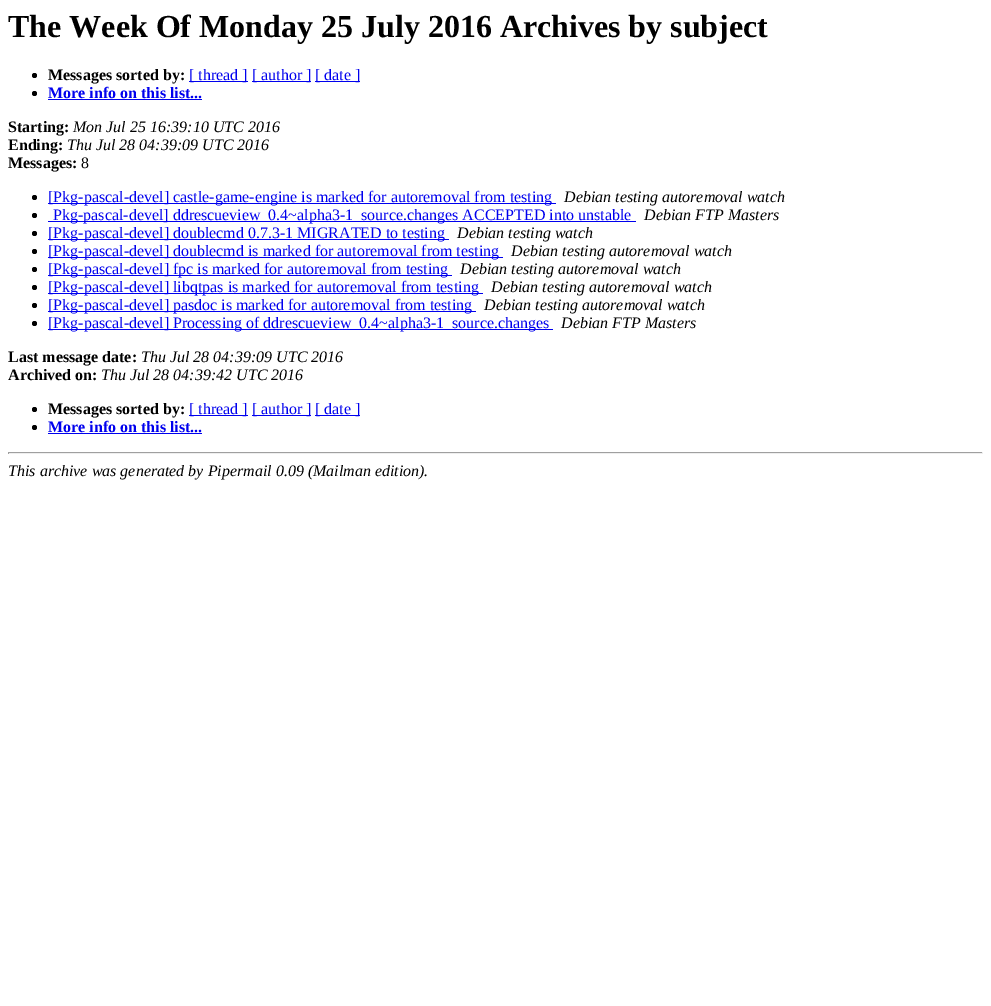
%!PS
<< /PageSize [991 1006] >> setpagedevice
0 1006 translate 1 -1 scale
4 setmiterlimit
1 setgray
0 0 991 1006 rectfill
/LiberationSerif-Bold [32 0 0 -32 0 0] selectfont
0 setgray
8 37 moveto (The Week Of Monday 25 July 2016 Archives by subject) show
newpath 34.5 75.5 2.5 0 360 arc closepath fill
/LiberationSerif-Bold [16 0 0 -16 0 0] selectfont
48 80 moveto (Messages sorted by:) show
0 0 0.933 setrgbcolor
189 81 59 1 rectfill
/LiberationSerif-Regular [16 0 0 -16 0 0] selectfont
189 80 moveto ([ thread ]) show
252 81 59 1 rectfill
252 80 moveto ([ author ]) show
315 81 45 1 rectfill
315 80 moveto ([ date ]) show
0 setgray
newpath 34.5 93.5 2.5 0 360 arc closepath fill
/LiberationSerif-Bold [16 0 0 -16 0 0] selectfont
0 0 0.933 setrgbcolor
48 98 moveto (More info on this list...) show
48 99 154 1 rectfill
0 setgray
8 132 moveto (Starting:) show
/LiberationSerif-Italic [16 0 0 -16 0 0] selectfont
73 132 moveto (Mon Jul 25 16:39:10 UTC 2016) show
/LiberationSerif-Bold [16 0 0 -16 0 0] selectfont
8 150 moveto (Ending:) show
/LiberationSerif-Italic [16 0 0 -16 0 0] selectfont
67 150 moveto (Thu Jul 28 04:39:09 UTC 2016) show
/LiberationSerif-Bold [16 0 0 -16 0 0] selectfont
8 168 moveto (Messages:) show
/LiberationSerif-Regular [16 0 0 -16 0 0] selectfont
81 168 moveto (8) show
newpath 34.5 197.5 2.5 0 360 arc closepath fill
0 0 0.933 setrgbcolor
48 203 508 1 rectfill
48 202 moveto ([Pkg-pascal-devel] castle-game-engine is marked for autoremoval from testing) show
/LiberationSerif-Italic [16 0 0 -16 0 0] selectfont
0 setgray
564 202 moveto (Debian testing autoremoval watch) show
newpath 34.5 215.5 2.5 0 360 arc closepath fill
0 0 0.933 setrgbcolor
48 221 588 1 rectfill
/LiberationSerif-Regular [16 0 0 -16 0 0] selectfont
53 220 moveto (Pkg-pascal-devel] ddrescueview_0.4~alpha3-1_source.changes ACCEPTED into unstable) show
/LiberationSerif-Italic [16 0 0 -16 0 0] selectfont
0 setgray
644 220 moveto (Debian FTP Masters) show
newpath 34.5 233.5 2.5 0 360 arc closepath fill
0 0 0.933 setrgbcolor
48 239 401 1 rectfill
/LiberationSerif-Regular [16 0 0 -16 0 0] selectfont
48 238 moveto ([Pkg-pascal-devel] doublecmd 0.7.3-1 MIGRATED to testing) show
/LiberationSerif-Italic [16 0 0 -16 0 0] selectfont
0 setgray
457 238 moveto (Debian testing watch) show
newpath 34.5 251.5 2.5 0 360 arc closepath fill
0 0 0.933 setrgbcolor
48 257 455 1 rectfill
/LiberationSerif-Regular [16 0 0 -16 0 0] selectfont
48 256 moveto ([Pkg-pascal-devel] doublecmd is marked for autoremoval from testing) show
/LiberationSerif-Italic [16 0 0 -16 0 0] selectfont
0 setgray
511 256 moveto (Debian testing autoremoval watch) show
newpath 34.5 269.5 2.5 0 360 arc closepath fill
0 0 0.933 setrgbcolor
48 275 404 1 rectfill
/LiberationSerif-Regular [16 0 0 -16 0 0] selectfont
48 274 moveto ([Pkg-pascal-devel] fpc is marked for autoremoval from testing) show
/LiberationSerif-Italic [16 0 0 -16 0 0] selectfont
0 setgray
460 274 moveto (Debian testing autoremoval watch) show
newpath 34.5 287.5 2.5 0 360 arc closepath fill
0 0 0.933 setrgbcolor
48 293 435 1 rectfill
/LiberationSerif-Regular [16 0 0 -16 0 0] selectfont
48 292 moveto ([Pkg-pascal-devel] libqtpas is marked for autoremoval from testing) show
/LiberationSerif-Italic [16 0 0 -16 0 0] selectfont
0 setgray
491 292 moveto (Debian testing autoremoval watch) show
newpath 34.5 305.5 2.5 0 360 arc closepath fill
0 0 0.933 setrgbcolor
48 311 428 1 rectfill
/LiberationSerif-Regular [16 0 0 -16 0 0] selectfont
48 310 moveto ([Pkg-pascal-devel] pasdoc is marked for autoremoval from testing) show
/LiberationSerif-Italic [16 0 0 -16 0 0] selectfont
0 setgray
484 310 moveto (Debian testing autoremoval watch) show
newpath 34.5 323.5 2.5 0 360 arc closepath fill
0 0 0.933 setrgbcolor
48 329 505 1 rectfill
/LiberationSerif-Regular [16 0 0 -16 0 0] selectfont
48 328 moveto ([Pkg-pascal-devel] Processing of ddrescueview_0.4~alpha3-1_source.changes) show
/LiberationSerif-Italic [16 0 0 -16 0 0] selectfont
0 setgray
561 328 moveto (Debian FTP Masters) show
/LiberationSerif-Bold [16 0 0 -16 0 0] selectfont
8 362 moveto (Last message date:) show
/LiberationSerif-Italic [16 0 0 -16 0 0] selectfont
141 362 moveto (Thu Jul 28 04:39:09 UTC 2016) show
/LiberationSerif-Bold [16 0 0 -16 0 0] selectfont
8 380 moveto (Archived on:) show
/LiberationSerif-Italic [16 0 0 -16 0 0] selectfont
101 380 moveto (Thu Jul 28 04:39:42 UTC 2016) show
newpath 34.5 409.5 2.5 0 360 arc closepath fill
/LiberationSerif-Bold [16 0 0 -16 0 0] selectfont
48 414 moveto (Messages sorted by:) show
0 0 0.933 setrgbcolor
189 415 59 1 rectfill
/LiberationSerif-Regular [16 0 0 -16 0 0] selectfont
189 414 moveto ([ thread ]) show
252 415 59 1 rectfill
252 414 moveto ([ author ]) show
315 415 45 1 rectfill
315 414 moveto ([ date ]) show
0 setgray
newpath 34.5 427.5 2.5 0 360 arc closepath fill
/LiberationSerif-Bold [16 0 0 -16 0 0] selectfont
0 0 0.933 setrgbcolor
48 432 moveto (More info on this list...) show
48 433 154 1 rectfill
0.624 setgray
8 452 975 1 rectfill
0.933 setgray
982 452 1 2 rectfill
8 453 975 1 rectfill
0.624 setgray
8 452 1 2 rectfill
/LiberationSerif-Italic [16 0 0 -16 0 0] selectfont
0 setgray
8 476 moveto (This archive was generated by Pipermail 0.09 \(Mailman edition\).) show
showpage
